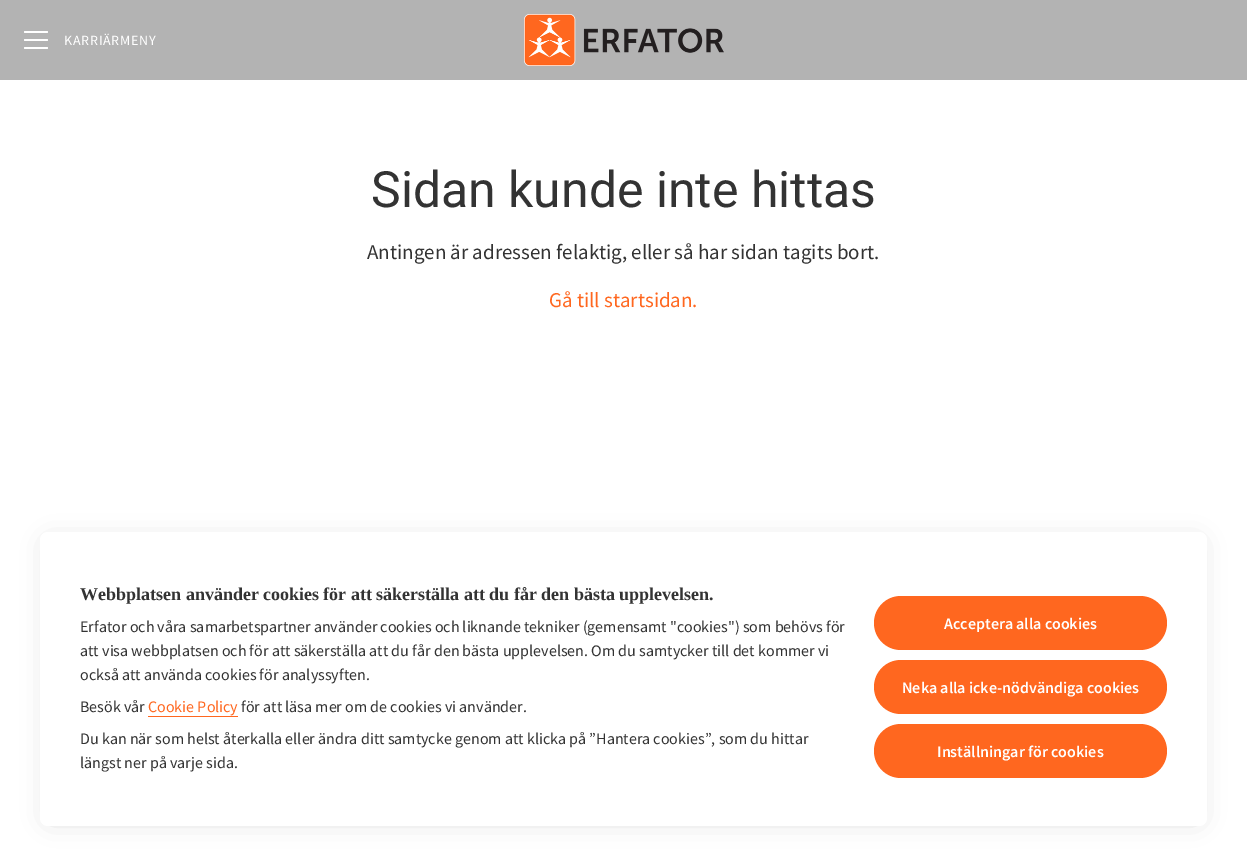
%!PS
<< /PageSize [1247 866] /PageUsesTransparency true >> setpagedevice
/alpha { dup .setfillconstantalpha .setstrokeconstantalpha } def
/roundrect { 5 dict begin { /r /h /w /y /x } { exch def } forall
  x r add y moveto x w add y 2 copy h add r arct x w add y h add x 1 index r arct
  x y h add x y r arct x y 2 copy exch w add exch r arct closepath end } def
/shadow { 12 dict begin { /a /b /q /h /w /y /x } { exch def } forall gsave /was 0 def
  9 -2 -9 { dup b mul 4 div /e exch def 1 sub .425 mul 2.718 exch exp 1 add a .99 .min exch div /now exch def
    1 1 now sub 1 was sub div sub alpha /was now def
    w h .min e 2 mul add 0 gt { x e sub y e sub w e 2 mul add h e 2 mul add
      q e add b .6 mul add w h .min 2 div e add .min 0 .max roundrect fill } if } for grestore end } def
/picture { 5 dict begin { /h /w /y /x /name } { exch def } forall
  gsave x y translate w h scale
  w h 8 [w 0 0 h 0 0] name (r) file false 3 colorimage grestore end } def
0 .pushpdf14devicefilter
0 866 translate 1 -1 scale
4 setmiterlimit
1 setgray
0 0 1247 866 rectfill
0.702 setgray
0 0 1247 80 rectfill
1 setgray
24 31 24 2 1 roundrect fill
24 39 24 2 1 roundrect fill
24 47 24 2 1 roundrect fill
/SourceSansPro-Regular [14 0 0 -14 0 0] selectfont
64 45 moveto 0.75 0 (KARRIÄRMENY) ashow
(img1.rgb) 524 14 200 52 picture
/Roboto-Regular [50 0 0 -50 0 0] selectfont
0.2 setgray
371 207 moveto (Sidan kunde inte hittas) show
/SourceSansPro-Regular [21 0 0 -21 0 0] selectfont
367 259 moveto (Antingen är adressen felaktig, eller så har sidan tagits bort.) show
1 0.404 0.122 setrgbcolor
549 307 moveto (Gå till startsidan.) show
0 setgray
50 544 1147 274 0 13.5 0.18 shadow
1 setgray
40 532 1167 294 8 roundrect fill
/LiberationSerif-Bold [18 0 0 -18 0 0] selectfont
0.2 setgray
80 600 moveto (Webbplatsen använder cookies för att säkerställa att du får den bästa upplevelsen.) show
/SourceSansPro-Regular [16 0 0 -16 0 0] selectfont
80 632 moveto (Erfator och våra samarbetspartner använder cookies och liknande tekniker \(gemensamt "cookies"\) som behövs för) show
80 656 moveto (att visa webbplatsen och för att säkerställa att du får den bästa upplevelsen. Om du samtycker till det kommer vi) show
80 680 moveto (också att använda cookies för analyssyften.) show
80 712 moveto (Besök vår) show
1 0.404 0.122 setrgbcolor
148 712 moveto (Cookie Policy) show
148 716 90 1 rectfill
0.2 setgray
241 712 moveto (för att läsa mer om de cookies vi använder.) show
80 744 moveto (Du kan när som helst återkalla eller ändra ditt samtycke genom att klicka på ”Hantera cookies”, som du hittar) show
80 768 moveto (längst ner på varje sida.) show
1 0.404 0.122 setrgbcolor
874 596 293 54 27 roundrect fill
/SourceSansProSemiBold-SemiBold [16 0 0 -16 0 0] selectfont
1 setgray
944 629 moveto (Acceptera alla cookies) show
1 0.404 0.122 setrgbcolor
874 660 293 54 27 roundrect fill
1 setgray
902 693 moveto (Neka alla icke-nödvändiga cookies) show
1 0.404 0.122 setrgbcolor
874 724 293 54 27 roundrect fill
1 setgray
937 757 moveto (Inställningar för cookies) show
.poppdf14devicefilter showpage
